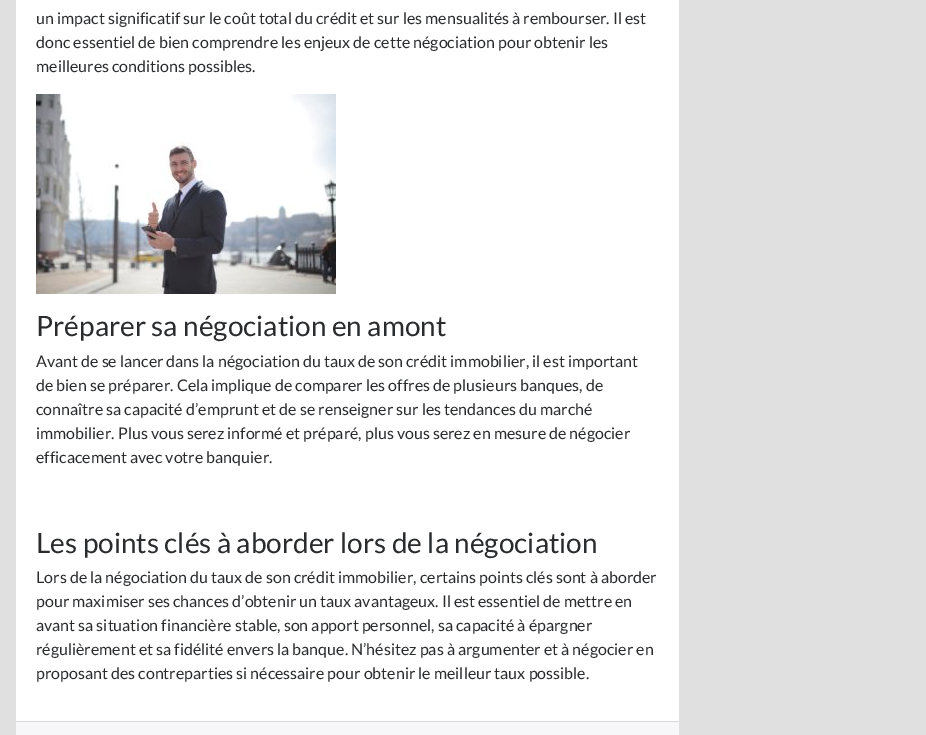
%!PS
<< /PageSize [926 735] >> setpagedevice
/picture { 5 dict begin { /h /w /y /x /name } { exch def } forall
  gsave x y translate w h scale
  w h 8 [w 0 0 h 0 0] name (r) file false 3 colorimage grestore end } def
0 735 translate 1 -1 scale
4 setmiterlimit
0.878 setgray
0 0 926 735 rectfill
1 setgray
16 0 663 721 rectfill
/Lato-Regular [16 0 0 -16 0 0] selectfont
0.161 0.169 0.173 setrgbcolor
36 24 moveto (un impact significatif sur le coût total du crédit et sur les mensualités à rembourser. Il est) show
36 48 moveto (donc essentiel de bien comprendre les enjeux de cette négociation pour obtenir les) show
36 72 moveto (meilleures conditions possibles.) show
(img1.rgb) 36 94 300 200 picture
/Lato-Regular [28 0 0 -28 0 0] selectfont
36 336 moveto (Préparer sa négociation en amont) show
/Lato-Regular [16 0 0 -16 0 0] selectfont
36 367 moveto (Avant de se lancer dans la négociation du taux de son crédit immobilier, il est important) show
36 391 moveto (de bien se préparer. Cela implique de comparer les offres de plusieurs banques, de) show
36 415 moveto (connaître sa capacité d’emprunt et de se renseigner sur les tendances du marché) show
36 439 moveto (immobilier. Plus vous serez informé et préparé, plus vous serez en mesure de négocier) show
36 463 moveto (efficacement avec votre banquier.) show
/Lato-Regular [28 0 0 -28 0 0] selectfont
36 553 moveto (Les points clés à aborder lors de la négociation) show
/Lato-Regular [16 0 0 -16 0 0] selectfont
36 583 moveto (Lors de la négociation du taux de son crédit immobilier, certains points clés sont à aborder) show
36 607 moveto (pour maximiser ses chances d’obtenir un taux avantageux. Il est essentiel de mettre en) show
36 631 moveto (avant sa situation financière stable, son apport personnel, sa capacité à épargner) show
36 655 moveto (régulièrement et sa fidélité envers la banque. N’hésitez pas à argumenter et à négocier en) show
36 679 moveto (proposant des contreparties si nécessaire pour obtenir le meilleur taux possible.) show
0.969 0.969 0.976 setrgbcolor
16 722 663 13 rectfill
0.847 0.847 0.855 setrgbcolor
16 721 663 1 rectfill
showpage
